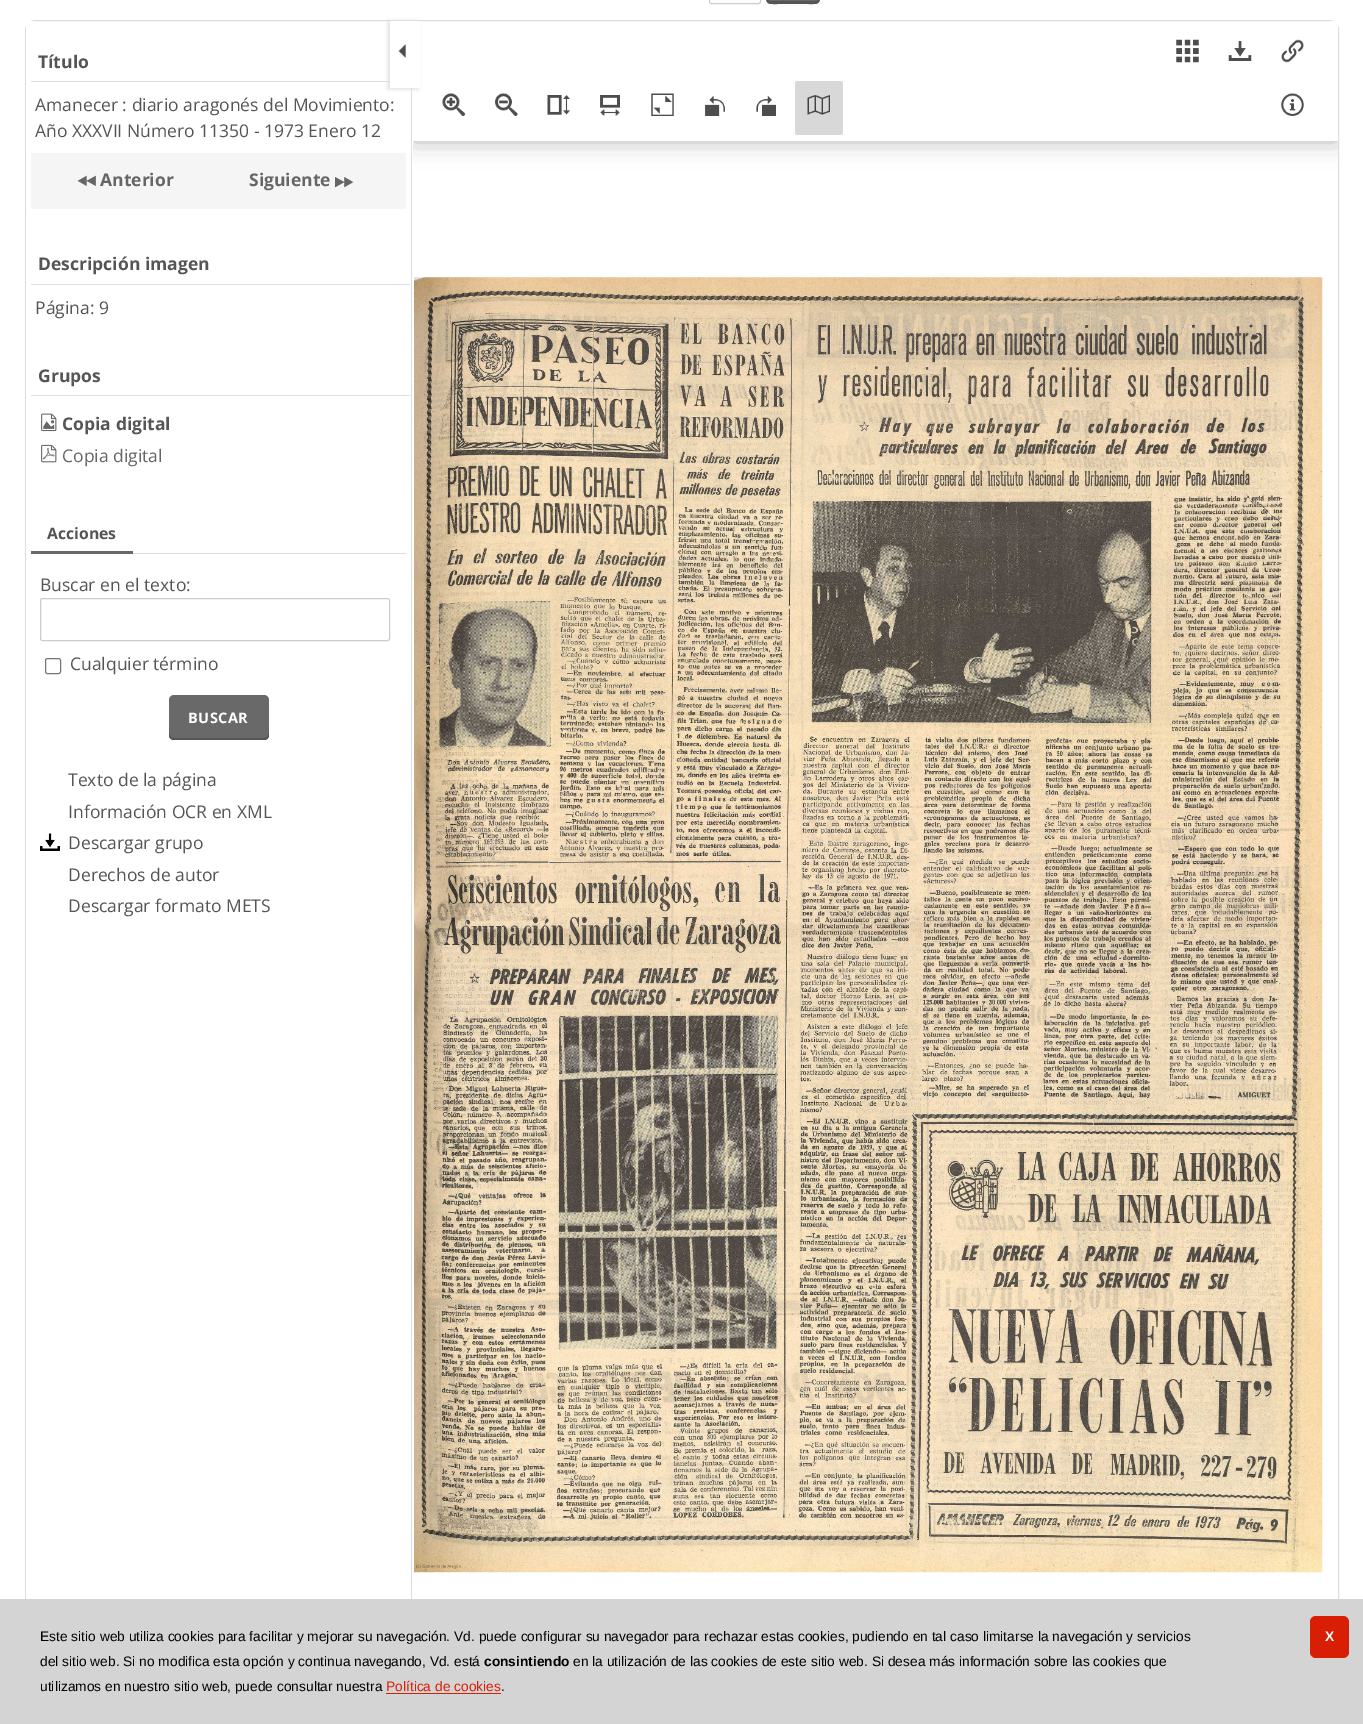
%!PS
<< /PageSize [1363 1724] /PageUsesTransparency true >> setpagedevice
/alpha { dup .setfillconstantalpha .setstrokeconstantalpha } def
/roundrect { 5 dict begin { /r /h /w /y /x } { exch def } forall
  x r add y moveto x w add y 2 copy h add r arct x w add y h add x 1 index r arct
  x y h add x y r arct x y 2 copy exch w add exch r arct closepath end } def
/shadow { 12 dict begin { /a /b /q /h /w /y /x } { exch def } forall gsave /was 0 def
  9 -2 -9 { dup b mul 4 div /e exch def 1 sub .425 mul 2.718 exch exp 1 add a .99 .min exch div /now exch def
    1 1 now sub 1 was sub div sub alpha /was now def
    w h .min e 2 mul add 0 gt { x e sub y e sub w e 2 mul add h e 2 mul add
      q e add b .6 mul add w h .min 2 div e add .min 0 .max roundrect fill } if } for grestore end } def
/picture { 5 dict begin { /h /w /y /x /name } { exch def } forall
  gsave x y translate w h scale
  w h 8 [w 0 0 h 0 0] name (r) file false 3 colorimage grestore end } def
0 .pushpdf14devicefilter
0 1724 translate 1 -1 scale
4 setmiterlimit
1 setgray
0 0 1363 1724 rectfill
0.8 setgray
709.5 -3.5 51 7 2 roundrect stroke
0.412 setgray
766 -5 54 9 5 roundrect fill
0.333 setgray
newpath 766 -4 moveto 766 5 770 4 778 4 curveto 808 4 lineto 816 4 820 5 820 -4 curveto 820 -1 818 1 815 1 curveto 771 1 lineto 768 1 766 -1 766 -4 curveto closepath fill
0.867 setgray
25.5 20.5 1313 1689 9.5 roundrect stroke
1 setgray
26 21 8 1688 rectfill
0.867 setgray
411 88 1 1621 rectfill
31 81 359 1 rectfill
/OpenSans-Bold [17.5 0 0 -17.5 0 0] selectfont
0.333 setgray
38 68 moveto (Título) show
/OpenSans-Regular [17.5 0 0 -17.5 0 0] selectfont
35 111 moveto (Amanecer : diario aragonés del Movimiento:) show
35 137 moveto (Año XXXVII Número 11350 - 1973 Enero 12) show
0.961 setgray
31 153 375 56 rectfill
(img1.rgb) 77 175 19 11 picture
/OpenSans-Bold [17.5 0 0 -17.5 0 0] selectfont
0.4 setgray
100 186 moveto (Anterior) show
249 186 moveto (Siguiente) show
(img2.rgb) 335 177 19 11 picture
0.867 setgray
31 284 379 1 rectfill
0.333 setgray
38 270 moveto (Descripción imagen) show
/OpenSans-Regular [17.5 0 0 -17.5 0 0] selectfont
35 314 moveto (Página: 9) show
0.867 setgray
31 395 379 1 rectfill
/OpenSans-Bold [17.5 0 0 -17.5 0 0] selectfont
0.333 setgray
38 382 moveto (Grupos) show
(img3.rgb) 41 413 16 19 picture
62 430 moveto (Copia digital) show
(img4.rgb) 41 444 16 19 picture
/OpenSans-Regular [17.5 0 0 -17.5 0 0] selectfont
0.4 setgray
62 462 moveto (Copia digital) show
0.867 setgray
133 553 273 1 rectfill
0.412 setgray
31 551 102 3 rectfill
/OpenSans-Bold [15.75 0 0 -15.75 0 0] selectfont
0.333 setgray
47 539 moveto (Acciones) show
/OpenSans-Regular [17.5 0 0 -17.5 0 0] selectfont
40 591 moveto (Buscar en el texto:) show
0.8 setgray
40.5 598.5 349 42 2 roundrect stroke
0.463 setgray
45.5 658.5 15 15 2 roundrect stroke
0.333 setgray
70 670 moveto (Cualquier término) show
0.412 setgray
169 695 100 45 5 roundrect fill
0.333 setgray
newpath 169 732 moveto 169 735 lineto 169 738 171 740 174 740 curveto 264 740 lineto 267 740 269 738 269 735 curveto 269 732 lineto 269 735 267 738 264 738 curveto 174 738 lineto 171 738 169 735 169 732 curveto closepath fill
/OpenSans-Bold [14.5 0 0 -14.5 0 0] selectfont
1 setgray
188 723 moveto 0.5 0 (BUSCAR) ashow
/OpenSans-Regular [17.5 0 0 -17.5 0 0] selectfont
0.333 setgray
68 786 moveto (Texto de la página) show
68 818 moveto (Información OCR en XML) show
(img5.rgb) 40 833 20 18 picture
68 849 moveto (Descargar grupo) show
68 881 moveto (Derechos de autor) show
68 912 moveto (Descargar formato METS) show
0.867 setgray
388 21 30 68 0 2 1 shadow
1 setgray
390 21 30 67 rectfill
(img6.rgb) 398 44 8 14 picture
1330 21 8 1688 rectfill
gsave
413 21 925 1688 rectclip
newpath 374 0 moveto 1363 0 lineto 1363 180 lineto 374 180 lineto closepath 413 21 moveto 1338 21 lineto 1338 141 lineto 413 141 lineto closepath eoclip newpath
0 setgray
413 21 925 120 0 12.5 0.3 shadow
grestore
(img7.rgb) 442 93 23 23 picture
(img8.rgb) 495 93 23 23 picture
(img9.rgb) 547 95 23 20 picture
(img10.rgb) 600 95 20 21 picture
(img11.rgb) 651 93 23 23 picture
(img12.rgb) 705 95 20 21 picture
(img13.rgb) 756 95 20 21 picture
0.847 setgray
795 81 48 54 2.5 roundrect fill
(img14.rgb) 807 95 23 20 picture
(img15.rgb) 1176 39 23 24 picture
(img16.rgb) 1228 41 24 20 picture
(img17.rgb) 1281 39 23 24 picture
(img18.rgb) 1281 93 23 23 picture
(img19.rgb) 414 277 909 1296 picture
0.95 alpha
0.824 setgray
0 1599 1363 125 rectfill
/LiberationSans-Regular [13.75 0 0 -13.75 0 0] selectfont
1 alpha
0 setgray
40 1641 moveto (Este sitio web utiliza cookies para facilitar y mejorar su navegación. Vd. puede configurar su navegador para rechazar estas cookies, pudiendo en tal caso limitarse la navegación y servicios) show
40 1666 moveto (del sitio web. Si no modifica esta opción y continua navegando, Vd. está) show
/LiberationSans-Bold [13.75 0 0 -13.75 0 0] selectfont
484 1666 moveto (consintiendo) show
/LiberationSans-Regular [13.75 0 0 -13.75 0 0] selectfont
573 1666 moveto (en la utilización de las cookies de este sitio web. Si desea más información sobre las cookies que) show
40 1691 moveto (utilizamos en nuestro sitio web, puede consultar nuestra) show
0.847 0.118 0.02 setrgbcolor
386 1691 moveto (Política de cookies) show
0 setgray
501 1691 moveto (.) show
0.847 0.118 0.02 setrgbcolor
386 1693 115 1 rectfill
1310 1616 39 42 6 roundrect fill
/LiberationSans-Bold [13.75 0 0 -13.75 0 0] selectfont
1 setgray
1325 1641 moveto -1 0 (X) ashow
.poppdf14devicefilter showpage
